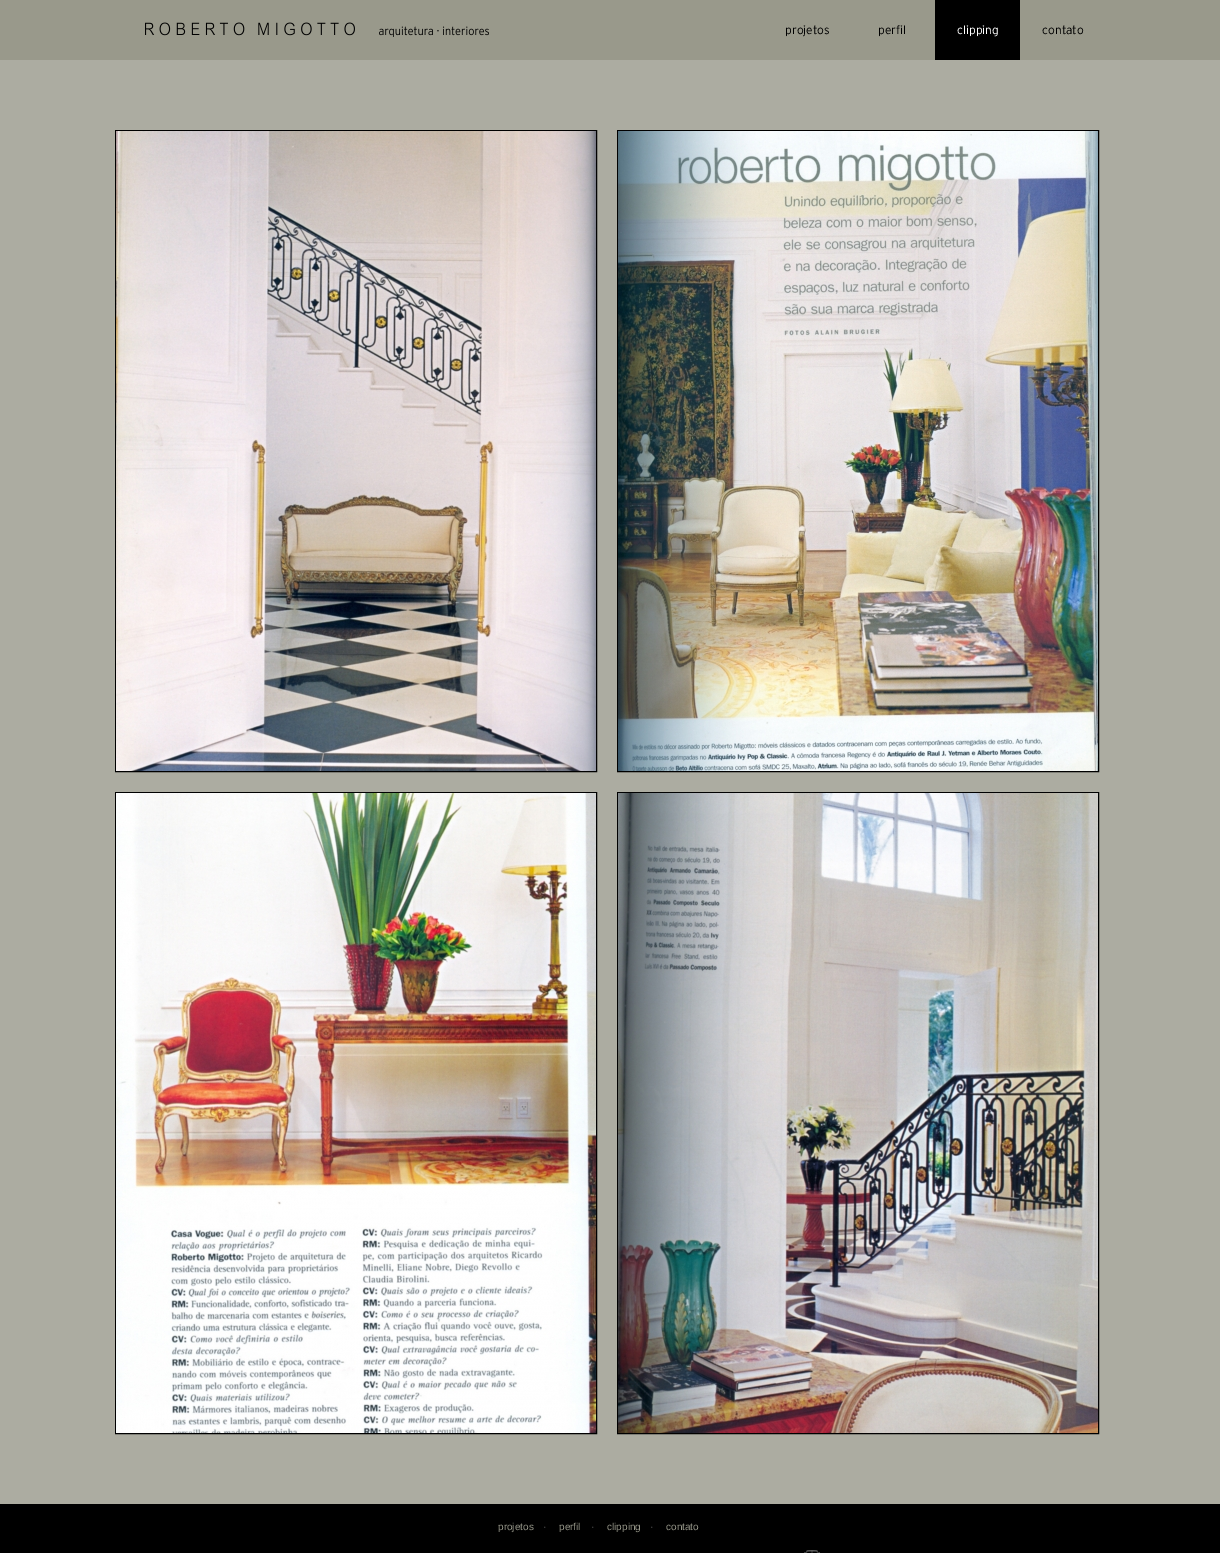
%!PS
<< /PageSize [1220 1553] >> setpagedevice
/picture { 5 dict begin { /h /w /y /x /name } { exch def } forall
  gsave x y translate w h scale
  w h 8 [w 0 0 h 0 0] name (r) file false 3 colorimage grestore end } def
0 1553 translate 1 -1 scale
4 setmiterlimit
0.675 0.675 0.631 setrgbcolor
0 0 1220 1553 rectfill
0.6 0.6 0.545 setrgbcolor
0 0 1220 60 rectfill
(img1.rgb) 145 22 344 15 picture
/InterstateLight-Light [12 0 0 -12 0 0] selectfont
0 setgray
785 34 moveto (projetos) show
878 34 moveto (perfil) show
935 0 85 60 rectfill
1 setgray
957 34 moveto (clipping) show
0 setgray
1042 34 moveto (contato) show
115.5 130.5 481 641 rectstroke
(img2.rgb) 116 131 480 640 picture
617.5 130.5 481 641 rectstroke
(img3.rgb) 618 131 480 640 picture
115.5 792.5 481 641 rectstroke
(img4.rgb) 116 793 480 640 picture
617.5 792.5 481 641 rectstroke
(img5.rgb) 618 793 480 640 picture
0 1504 1220 49 rectfill
/LiberationSans-Regular [10 0 0 -10 0 0] selectfont
0.6 0.6 0.545 setrgbcolor
498 1530 moveto (projetos) show
0.4 setgray
543 1530 moveto (·) show
0.6 0.6 0.545 setrgbcolor
559 1530 moveto (perfil) show
0.4 setgray
591 1530 moveto (·) show
0.6 0.6 0.545 setrgbcolor
607 1530 moveto (clipping) show
0.4 setgray
650 1530 moveto (·) show
0.6 0.6 0.545 setrgbcolor
666 1530 moveto (contato) show
(img6.rgb) 804 1550 16 3 picture
showpage
